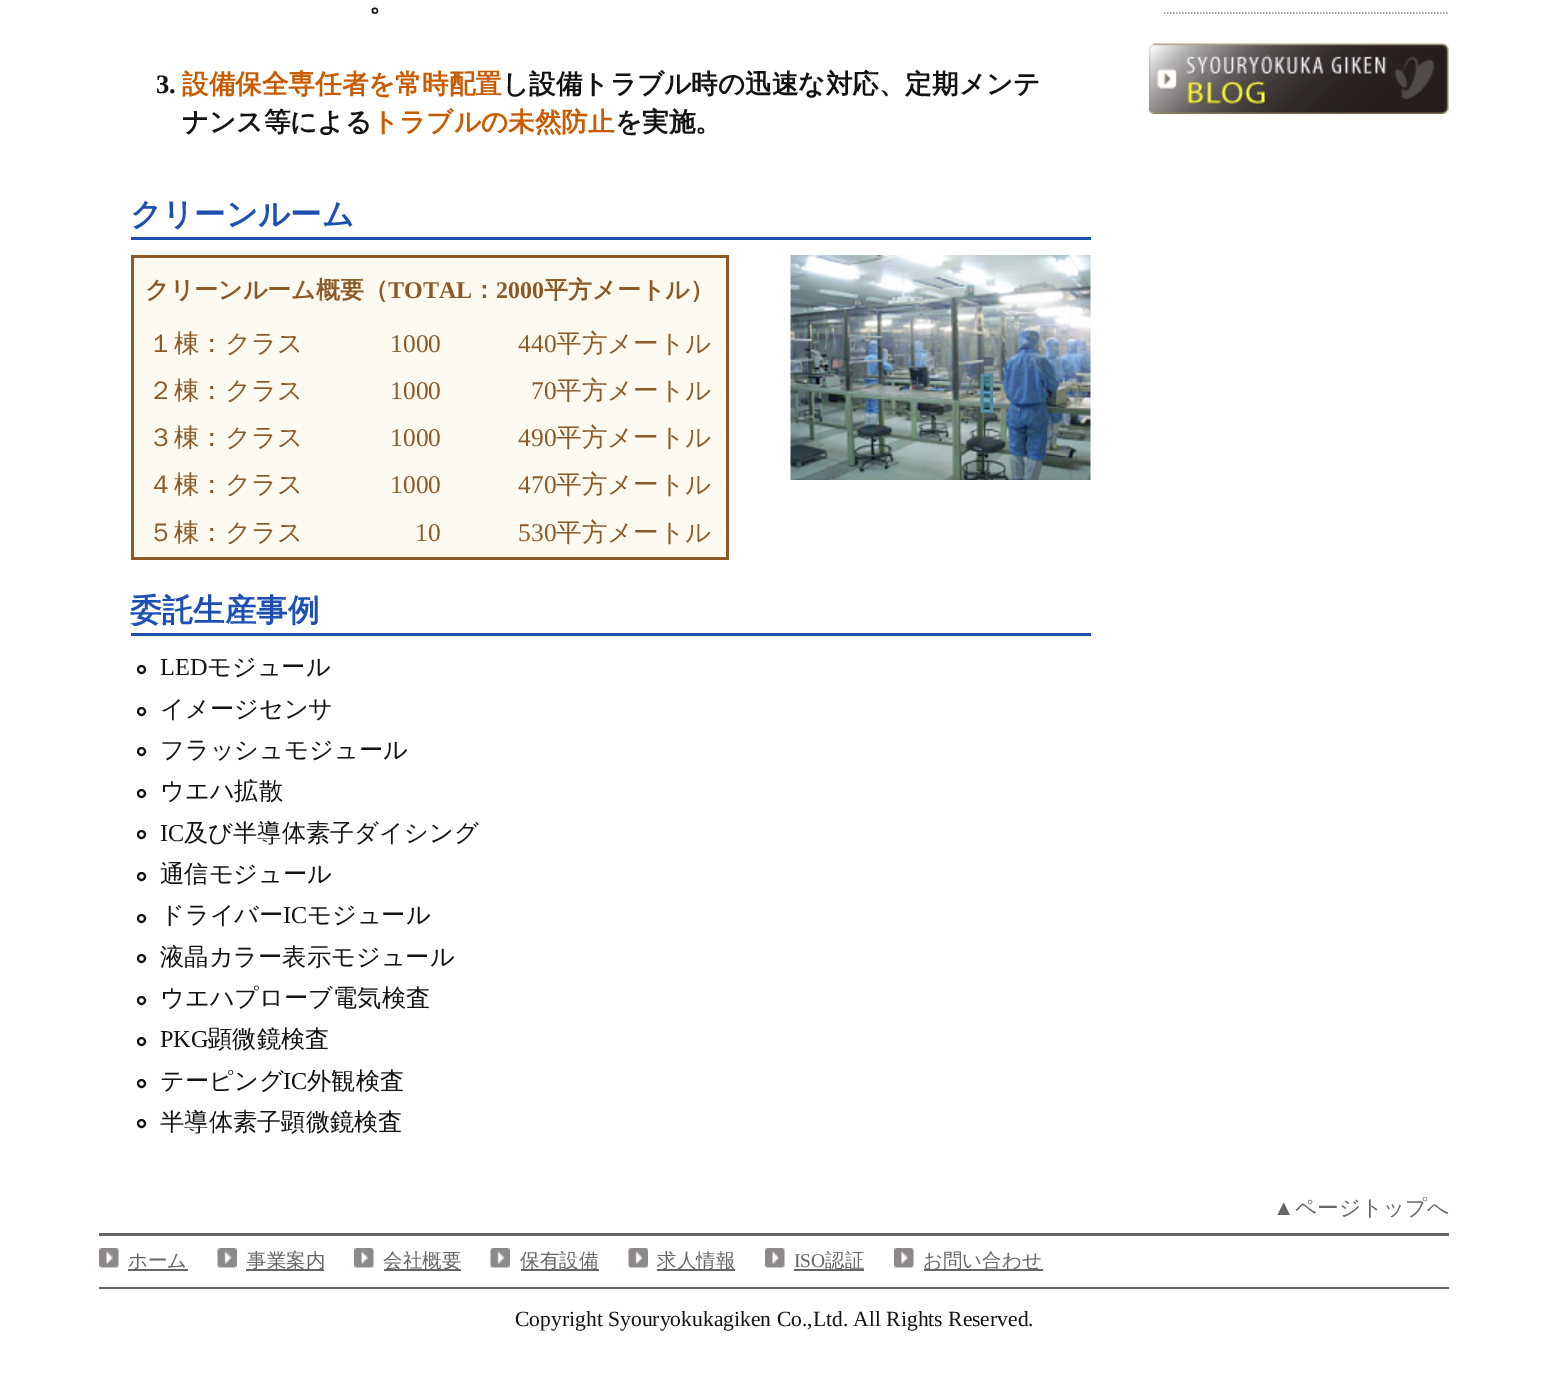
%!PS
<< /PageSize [1547 1379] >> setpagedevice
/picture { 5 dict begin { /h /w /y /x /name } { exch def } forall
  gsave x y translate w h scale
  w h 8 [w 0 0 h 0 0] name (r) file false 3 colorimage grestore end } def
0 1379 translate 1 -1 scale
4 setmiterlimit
1 setgray
0 0 1547 1379 rectfill
/WenQuanYiZenHei-Bold [26.6 0 0 -26.6 0 0] selectfont
0.075 setgray
369 11 moveto (。) show
/LiberationSerif-Bold [26.6 0 0 -26.6 0 0] selectfont
156 93 moveto (3.) show
/WenQuanYiZenHei-Bold [26.6 0 0 -26.6 0 0] selectfont
0.784 0.353 0 setrgbcolor
182 93 moveto (設備保全専任者を常時配置) show
0.075 setgray
502 93 moveto (し設備トラブル時の迅速な対応、定期メンテ) show
182 131 moveto (ナンス等による) show
0.784 0.353 0 setrgbcolor
372 131 moveto (トラブルの未然防止) show
0.075 setgray
615 131 moveto (を実施。) show
0.118 0.314 0.706 setrgbcolor
131 237 960 3 rectfill
/WenQuanYiZenHei-Bold [31.5 0 0 -31.5 0 0] selectfont
130 225 moveto (クリーンルーム) show
0.549 0.353 0.157 setrgbcolor
131 255 598 3 rectfill
726 255 3 305 rectfill
131 557 598 3 rectfill
131 255 3 305 rectfill
1 0.98 0.941 setrgbcolor
134 258 592 63 rectfill
/WenQuanYiZenHei-Bold [24 0 0 -24 0 0] selectfont
0.549 0.353 0.157 setrgbcolor
145 298 moveto (クリーンルーム概要（) show
/LiberationSerif-Bold [24 0 0 -24 0 0] selectfont
388 298 moveto (TOTAL) show
/WenQuanYiZenHei-Bold [24 0 0 -24 0 0] selectfont
472 298 moveto (：) show
/LiberationSerif-Bold [24 0 0 -24 0 0] selectfont
496 298 moveto (2000) show
/WenQuanYiZenHei-Bold [24 0 0 -24 0 0] selectfont
544 298 moveto (平方メートル）) show
1 0.98 0.941 setrgbcolor
134 321 592 47 rectfill
/WenQuanYiZenHei-Medium [25.5 0 0 -25.5 0 0] selectfont
0.549 0.353 0.157 setrgbcolor
148 352 moveto (１棟：クラス) show
/LiberationSerif-Regular [25.5 0 0 -25.5 0 0] selectfont
390 352 moveto (1000) show
518 352 moveto (440) show
/WenQuanYiZenHei-Medium [25.5 0 0 -25.5 0 0] selectfont
556 352 moveto (平方メートル) show
1 0.98 0.941 setrgbcolor
134 368 592 48 rectfill
0.549 0.353 0.157 setrgbcolor
148 399 moveto (２棟：クラス) show
/LiberationSerif-Regular [25.5 0 0 -25.5 0 0] selectfont
390 399 moveto (1000) show
531 399 moveto (70) show
/WenQuanYiZenHei-Medium [25.5 0 0 -25.5 0 0] selectfont
556 399 moveto (平方メートル) show
1 0.98 0.941 setrgbcolor
134 416 592 46 rectfill
0.549 0.353 0.157 setrgbcolor
148 446 moveto (３棟：クラス) show
/LiberationSerif-Regular [25.5 0 0 -25.5 0 0] selectfont
390 446 moveto (1000) show
518 446 moveto (490) show
/WenQuanYiZenHei-Medium [25.5 0 0 -25.5 0 0] selectfont
556 446 moveto (平方メートル) show
1 0.98 0.941 setrgbcolor
134 462 592 47 rectfill
0.549 0.353 0.157 setrgbcolor
148 493 moveto (４棟：クラス) show
/LiberationSerif-Regular [25.5 0 0 -25.5 0 0] selectfont
390 493 moveto (1000) show
518 493 moveto (470) show
/WenQuanYiZenHei-Medium [25.5 0 0 -25.5 0 0] selectfont
556 493 moveto (平方メートル) show
1 0.98 0.941 setrgbcolor
134 509 592 48 rectfill
0.549 0.353 0.157 setrgbcolor
148 541 moveto (５棟：クラス) show
/LiberationSerif-Regular [25.5 0 0 -25.5 0 0] selectfont
415 541 moveto (10) show
518 541 moveto (530) show
/WenQuanYiZenHei-Medium [25.5 0 0 -25.5 0 0] selectfont
556 541 moveto (平方メートル) show
(img1.rgb) 790 255 301 225 picture
0.118 0.314 0.706 setrgbcolor
131 633 960 3 rectfill
/WenQuanYiZenHei-Bold [31.5 0 0 -31.5 0 0] selectfont
130 621 moveto (委託生産事例) show
0.075 setgray
2 setlinewidth
newpath 141.5 669.5 3.5 0 360 arc closepath stroke
/LiberationSerif-Regular [24.25 0 0 -24.25 0 0] selectfont
160 675 moveto (LED) show
/WenQuanYiZenHei-Medium [24.25 0 0 -24.25 0 0] selectfont
207 675 moveto (モジュール) show
newpath 141.5 711.5 3.5 0 360 arc closepath stroke
160 717 moveto (イメージセンサ) show
newpath 141.5 751.5 3.5 0 360 arc closepath stroke
160 758 moveto (フラッシュモジュール) show
newpath 141.5 793.5 3.5 0 360 arc closepath stroke
160 799 moveto (ウエハ拡散) show
newpath 141.5 834.5 3.5 0 360 arc closepath stroke
/LiberationSerif-Regular [24.25 0 0 -24.25 0 0] selectfont
160 841 moveto (IC) show
/WenQuanYiZenHei-Medium [24.25 0 0 -24.25 0 0] selectfont
184 841 moveto (及び半導体素子ダイシング) show
newpath 141.5 876.5 3.5 0 360 arc closepath stroke
160 882 moveto (通信モジュール) show
newpath 141.5 918.5 3.5 0 360 arc closepath stroke
160 923 moveto (ドライバー) show
/LiberationSerif-Regular [24.25 0 0 -24.25 0 0] selectfont
283 923 moveto (IC) show
/WenQuanYiZenHei-Medium [24.25 0 0 -24.25 0 0] selectfont
307 923 moveto (モジュール) show
newpath 141.5 958.5 3.5 0 360 arc closepath stroke
160 965 moveto (液晶カラー表示モジュール) show
newpath 141.5 1000.5 3.5 0 360 arc closepath stroke
160 1006 moveto (ウエハプローブ電気検査) show
newpath 141.5 1041.5 3.5 0 360 arc closepath stroke
/LiberationSerif-Regular [24.25 0 0 -24.25 0 0] selectfont
160 1047 moveto (PKG) show
/WenQuanYiZenHei-Medium [24.25 0 0 -24.25 0 0] selectfont
208 1047 moveto (顕微鏡検査) show
newpath 141.5 1083.5 3.5 0 360 arc closepath stroke
160 1089 moveto (テーピング) show
/LiberationSerif-Regular [24.25 0 0 -24.25 0 0] selectfont
283 1089 moveto (IC) show
/WenQuanYiZenHei-Medium [24.25 0 0 -24.25 0 0] selectfont
307 1089 moveto (外観検査) show
newpath 141.5 1123.5 3.5 0 360 arc closepath stroke
160 1130 moveto (半導体素子顕微鏡検査) show
gsave
1149 0 300 159 rectclip
0.588 setgray
1.5 setlinewidth
[1.5 1.5] 0 setdash
newpath 1164 13 moveto 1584 13 lineto stroke
grestore
(img2.rgb) 1149 43 300 71 picture
/LiberationSerif-Regular [21.6 0 0 -21.6 0 0] selectfont
0.4 setgray
1273 1215 moveto (▲) show
/WenQuanYiZenHei-Medium [21.6 0 0 -21.6 0 0] selectfont
1295 1215 moveto (ページトップへ) show
99 1233 1350 3 rectfill
99 1287 1350 2 rectfill
(img3.rgb) 99 1248 20 20 picture
/WenQuanYiZenHei-Medium [19.5 0 0 -19.5 0 0] selectfont
128 1267 moveto (ホーム) show
128 1269 60 2 rectfill
(img4.rgb) 217 1248 20 20 picture
246 1269 78 2 rectfill
247 1267 moveto (事業案内) show
(img5.rgb) 354 1248 20 20 picture
384 1269 77 2 rectfill
383 1267 moveto (会社概要) show
(img4.rgb) 490 1248 20 20 picture
521 1269 78 2 rectfill
520 1267 moveto (保有設備) show
(img6.rgb) 628 1248 20 20 picture
657 1269 78 2 rectfill
657 1267 moveto (求人情報) show
(img3.rgb) 765 1248 20 20 picture
/LiberationSerif-Regular [19.5 0 0 -19.5 0 0] selectfont
794 1267 moveto (ISO) show
794 1269 70 2 rectfill
/WenQuanYiZenHei-Medium [19.5 0 0 -19.5 0 0] selectfont
825 1267 moveto (認証) show
(img3.rgb) 894 1248 20 20 picture
924 1269 119 2 rectfill
923 1267 moveto (お問い合わせ) show
/LiberationSerif-Regular [21.6 0 0 -21.6 0 0] selectfont
0.075 setgray
515 1326 moveto (Copyright Syouryokukagiken Co.,Ltd. All Rights Reserved.) show
showpage
